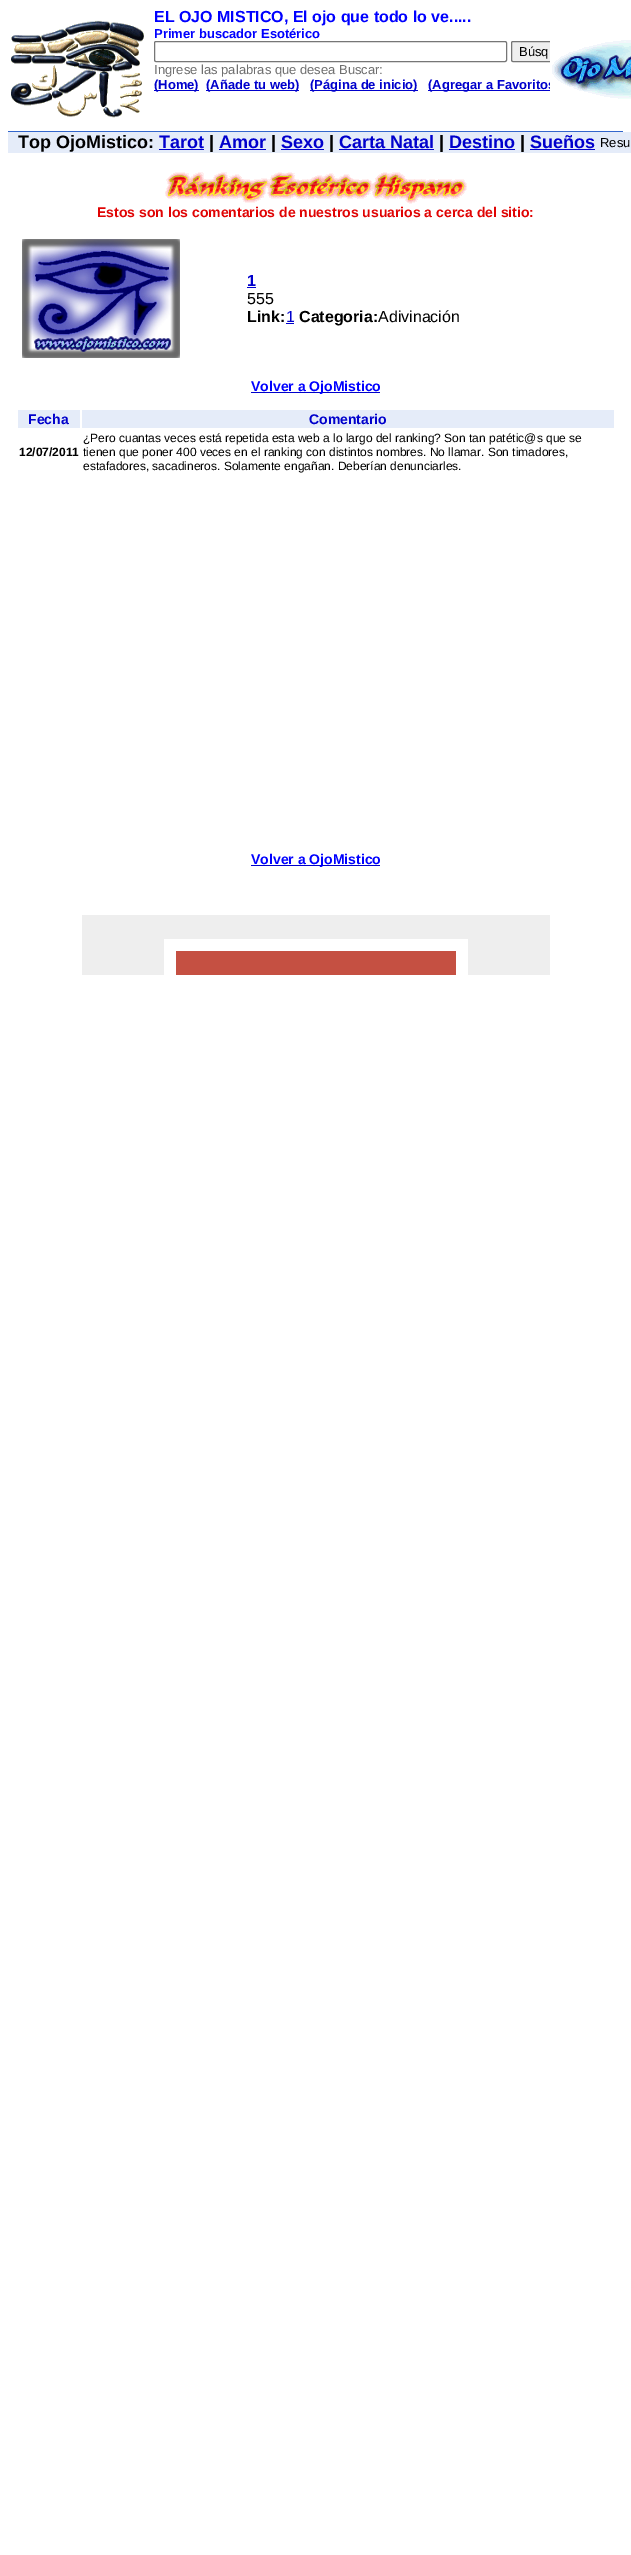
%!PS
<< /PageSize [631 2555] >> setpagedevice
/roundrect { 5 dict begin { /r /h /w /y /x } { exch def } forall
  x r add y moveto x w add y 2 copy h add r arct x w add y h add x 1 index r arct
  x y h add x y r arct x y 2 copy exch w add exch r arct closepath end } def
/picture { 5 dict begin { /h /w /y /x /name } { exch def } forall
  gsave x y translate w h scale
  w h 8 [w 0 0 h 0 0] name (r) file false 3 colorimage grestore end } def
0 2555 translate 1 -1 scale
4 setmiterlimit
1 setgray
0 0 631 2555 rectfill
(img1.rgb) 11 20 133 98 picture
/LiberationSans-Bold [16 0 0 -16 0 0] selectfont
0 0 1 setrgbcolor
154 22 moveto (EL OJO MISTICO, El ojo que todo lo ve.....) show
/LiberationSans-Bold [13 0 0 -13 0 0] selectfont
154 38 moveto (Primer buscador Esotérico) show
0.463 setgray
154.5 41.5 352 20 1.5 roundrect stroke
0.937 setgray
511.5 41.5 75 20 1.5 roundrect gsave fill grestore
0.463 setgray
stroke
/LiberationSans-Regular [13 0 0 -13 0 0] selectfont
0 setgray
519 56 moveto (Búsq) show
0.435 setgray
154 74 moveto (Ingrese las palabras que desea Buscar:) show
0 0 0.8 setrgbcolor
154 90 45 1 rectfill
/LiberationSans-Bold [13 0 0 -13 0 0] selectfont
154 89 moveto (\(Home\)) show
206 90 93 1 rectfill
206 89 moveto (\(Añade tu web\)) show
310 90 108 1 rectfill
310 89 moveto (\(Página de inicio\)) show
428 90 122 1 rectfill
428 89 moveto (\(Agregar a Favoritos) show
(img2.rgb) 550 40 81 59 picture
0.2 0.4 0.8 setrgbcolor
8 131 615 1 rectfill
0.898 0.925 0.976 setrgbcolor
8 132 623 21 rectfill
/LiberationSans-Bold [18 0 0 -18 0 0] selectfont
0 setgray
18 148 moveto (Top OjoMistico:) show
0 0 0.8 setrgbcolor
159 148 moveto (Tarot) show
159 149 45 1 rectfill
0 setgray
209 148 moveto (|) show
0 0 0.8 setrgbcolor
219 148 moveto (Amor) show
219 149 47 1 rectfill
0 setgray
271 148 moveto (|) show
0 0 0.8 setrgbcolor
281 148 moveto (Sexo) show
281 149 43 1 rectfill
0 setgray
329 148 moveto (|) show
0 0 0.8 setrgbcolor
339 148 moveto (Carta Natal) show
339 149 95 1 rectfill
0 setgray
439 148 moveto (|) show
0 0 0.8 setrgbcolor
449 148 moveto (Destino) show
449 149 66 1 rectfill
0 setgray
520 148 moveto (|) show
0 0 0.8 setrgbcolor
530 148 moveto (Sueños) show
530 149 65 1 rectfill
/LiberationSans-Regular [13 0 0 -13 0 0] selectfont
0 setgray
600 147 moveto (Resu) show
(img3.rgb) 165 172 302 32 picture
/LiberationSans-Bold [14 0 0 -14 0 0] selectfont
0.878 0.016 0.016 setrgbcolor
97 217 moveto (Estos son los comentarios de nuestros usuarios a cerca del sitio:) show
(img4.rgb) 22 239 158 119 picture
/LiberationSans-Bold [16 0 0 -16 0 0] selectfont
0 0 0.8 setrgbcolor
247 286 moveto (1) show
247 287 9 1 rectfill
/LiberationSans-Regular [16 0 0 -16 0 0] selectfont
0 setgray
247 304 moveto (555) show
/LiberationSans-Bold [16 0 0 -16 0 0] selectfont
247 322 moveto (Link:) show
/LiberationSans-Regular [16 0 0 -16 0 0] selectfont
0 0 0.8 setrgbcolor
286 322 moveto (1) show
286 323 8 1 rectfill
/LiberationSans-Bold [16 0 0 -16 0 0] selectfont
0 setgray
299 322 moveto (Categoria:) show
/LiberationSans-Regular [16 0 0 -16 0 0] selectfont
378 322 moveto (Adivinación) show
0 0 0.8 setrgbcolor
251 392 129 1 rectfill
/LiberationSans-Bold [14 0 0 -14 0 0] selectfont
0 0 1 setrgbcolor
251 391 moveto (Volver a OjoMistico) show
0.898 0.925 0.976 setrgbcolor
18 410 62 18 rectfill
0 0 0.8 setrgbcolor
28 424 moveto (Fecha) show
0.898 0.925 0.976 setrgbcolor
82 410 532 18 rectfill
0 0 0.8 setrgbcolor
309 424 moveto (Comentario) show
/LiberationSans-Bold [12 0 0 -12 0 0] selectfont
0 setgray
19 456 moveto (12/07/2011) show
/LiberationSans-Regular [12 0 0 -12 0 0] selectfont
83 442 moveto (¿Pero cuantas veces está repetida esta web a lo largo del ranking? Son tan patétic@s que se) show
83 456 moveto (tienen que poner 400 veces en el ranking con distintos nombres. No llamar. Son timadores,) show
83 470 moveto (estafadores, sacadineros. Solamente engañan. Deberían denunciarles.) show
0 0 0.8 setrgbcolor
251 865 129 1 rectfill
/LiberationSans-Bold [14 0 0 -14 0 0] selectfont
0 0 1 setrgbcolor
251 864 moveto (Volver a OjoMistico) show
(img5.rgb) 82 915 468 60 picture
showpage
